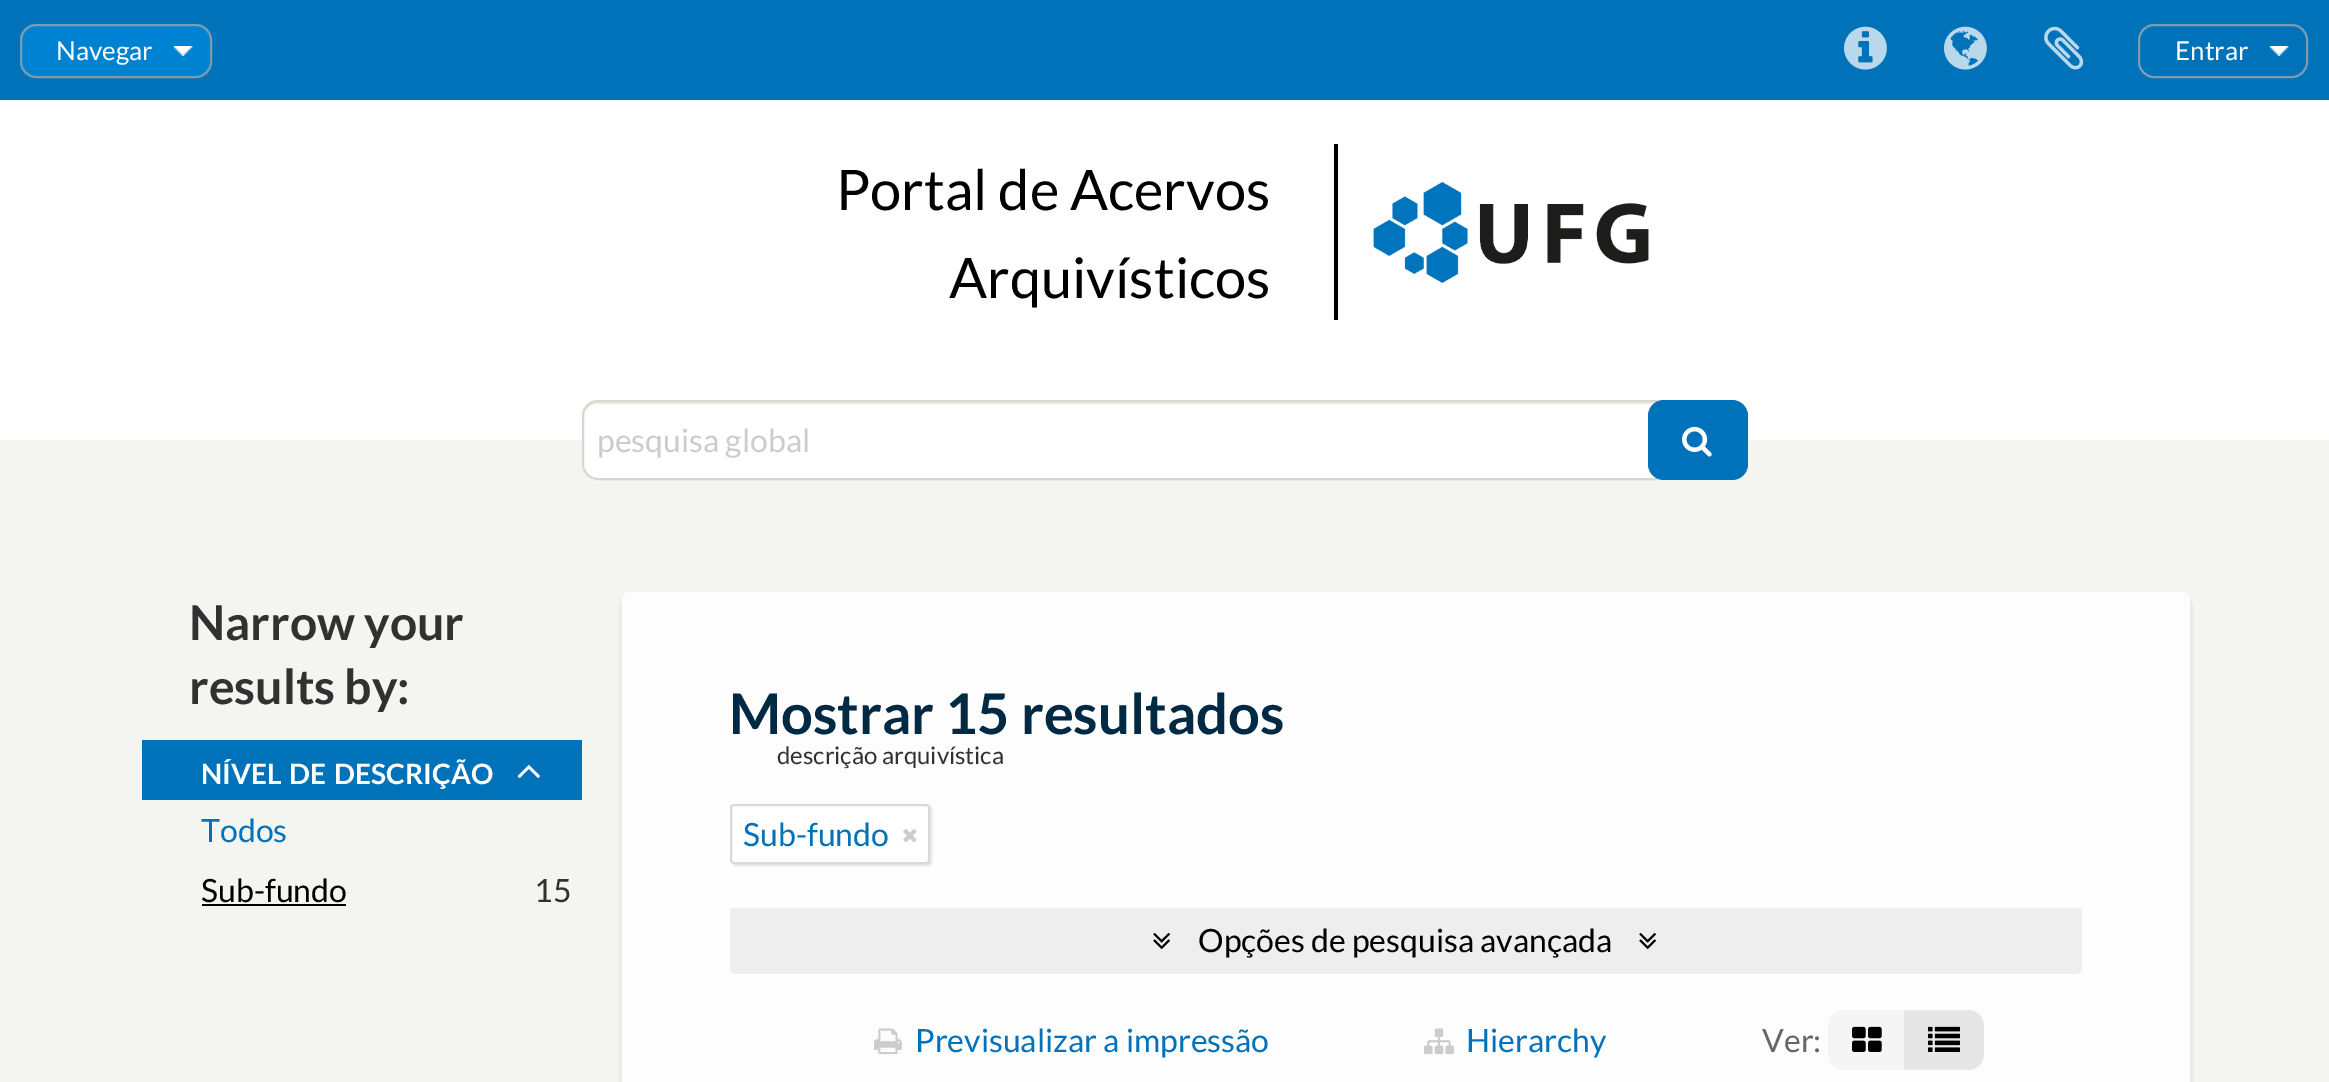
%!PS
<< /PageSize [2329 1082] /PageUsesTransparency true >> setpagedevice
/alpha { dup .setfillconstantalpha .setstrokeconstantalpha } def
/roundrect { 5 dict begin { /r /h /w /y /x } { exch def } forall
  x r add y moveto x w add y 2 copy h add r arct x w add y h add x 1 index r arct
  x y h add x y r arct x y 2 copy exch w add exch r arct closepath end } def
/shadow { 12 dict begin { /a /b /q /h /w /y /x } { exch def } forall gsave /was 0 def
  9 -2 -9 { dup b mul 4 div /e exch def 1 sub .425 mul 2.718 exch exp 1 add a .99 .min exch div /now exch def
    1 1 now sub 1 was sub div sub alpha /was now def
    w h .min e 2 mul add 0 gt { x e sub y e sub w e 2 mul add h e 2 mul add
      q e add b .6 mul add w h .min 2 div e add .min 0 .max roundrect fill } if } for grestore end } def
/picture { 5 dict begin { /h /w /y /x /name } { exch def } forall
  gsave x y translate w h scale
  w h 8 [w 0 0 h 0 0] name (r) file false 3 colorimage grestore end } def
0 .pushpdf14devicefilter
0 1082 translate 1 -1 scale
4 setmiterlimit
0.957 0.957 0.945 setrgbcolor
0 0 2329 1082 rectfill
1 setgray
0 100 2329 340 rectfill
0 0.447 0.725 setrgbcolor
0 0 2329 100 rectfill
0 0.51 0.827 setrgbcolor
20 24 192 54 16 roundrect fill
(img1.rgb) 174 46 19 10 picture
0.486 0.608 0.682 setrgbcolor
2 setlinewidth
21 25 190 52 15 roundrect stroke
/Lato-Regular [26 0 0 -26 0 0] selectfont
1 setgray
56 60 moveto (Navegar) show
(img2.rgb) 1844 26 43 44 picture
(img3.rgb) 1944 26 43 44 picture
(img4.rgb) 2044 26 40 44 picture
(img5.rgb) 2270 46 19 10 picture
0.486 0.608 0.682 setrgbcolor
2139 25 168 52 15 roundrect stroke
1 setgray
2175 60 moveto (Entrar) show
0 setgray
1334 144 4 176 rectfill
/Lato-Regular [56 0 0 -56 0 0] selectfont
836 210 moveto (Portal de Acervos) show
949 298 moveto (Arquivísticos) show
(img6.rgb) 1373 181 276 103 picture
1 setgray
newpath 598 400 moveto 1658 400 lineto 1658 480 lineto 598 480 lineto 589 480 582 473 582 464 curveto 582 416 lineto 582 407 589 400 598 400 curveto closepath fill
0.925 setgray
newpath 598 404 moveto 1656 404 lineto 1656 402 lineto 598 402 lineto 589 402 584 410 584 418 curveto 584 410 590 404 598 404 curveto closepath fill
0.843 0.851 0.808 setrgbcolor
newpath 598 401 moveto 1657 401 lineto 1657 479 lineto 598 479 lineto 589.5 479 583 472.5 583 464 curveto 583 416 lineto 583 407.5 589.5 401 598 401 curveto closepath stroke
/Lato-Regular [32 0 0 -32 0 0] selectfont
0.8 setgray
597 452 moveto (pesquisa global) show
0 0.447 0.725 setrgbcolor
1648 400 100 80 16 roundrect fill
(img7.rgb) 1682 426 30 31 picture
/Lato-Bold [48 0 0 -48 0 0] selectfont
0.192 setgray
189 640 moveto (Narrow your) show
189 704 moveto (results by:) show
0 0.447 0.725 setrgbcolor
142 740 440 60 rectfill
/Lato-Bold [28 0 0 -28 0 0] selectfont
1 setgray
201 784 moveto (NÍVEL) show
289 784 moveto (DE) show
334 784 moveto (DESCRIÇÃO) show
(img8.rgb) 517 765 23 13 picture
/Lato-Regular [32 0 0 -32 0 0] selectfont
0 0.447 0.725 setrgbcolor
201 842 moveto (Todos) show
0 setgray
201 902 moveto (Sub-fundo) show
202 904 144 2 rectfill
0.192 setgray
534 902 moveto (15) show
0 setgray
632 606 1548 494 0 6 1 shadow
0.992 setgray
622 592 1568 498 8 roundrect fill
/Lato-Bold [56 0 0 -56 0 0] selectfont
0 0.165 0.267 setrgbcolor
729 734 moveto (Mostrar 15 resultados) show
/Lato-Regular [24 0 0 -24 0 0] selectfont
0.192 setgray
777 764 moveto (descrição arquivística) show
0 setgray
732 806 200 60 4 1 0.1 shadow
1 setgray
731 805 198 58 3 roundrect gsave fill grestore
0.851 setgray
stroke
/Lato-Regular [32 0 0 -32 0 0] selectfont
0 0.447 0.725 setrgbcolor
743 846 moveto (Sub-fundo) show
(img9.rgb) 903 829 14 14 picture
0.957 0.957 0.945 setrgbcolor
newpath 730 908 moveto 2082 908 lineto 2082 966 lineto 2082 970.5 2078.5 974 2074 974 curveto 738 974 lineto 733.5 974 730 970.5 730 966 curveto closepath fill
0.933 setgray
730 908 1352 66 6 roundrect fill
(img10.rgb) 1153 933 17 17 picture
0 setgray
1198 952 moveto (Opções de pesquisa avançada) show
(img10.rgb) 1639 933 17 17 picture
(img11.rgb) 874 1028 28 27 picture
0 0.447 0.725 setrgbcolor
915 1052 moveto (Previsualizar a impressão) show
(img12.rgb) 1424 1028 30 27 picture
1466 1052 moveto (Hierarchy) show
0.4 setgray
1762 1052 moveto (Ver:) show
0.961 setgray
newpath 1844 1010 moveto 1906 1010 lineto 1906 1070 lineto 1844 1070 lineto 1835 1070 1828 1063 1828 1054 curveto 1828 1026 lineto 1828 1017 1835 1010 1844 1010 curveto closepath fill
(img13.rgb) 1852 1026 30 26 picture
0.902 setgray
newpath 1904 1010 moveto 1968 1010 lineto 1977 1010 1984 1017 1984 1026 curveto 1984 1054 lineto 1984 1063 1977 1070 1968 1070 curveto 1904 1070 lineto closepath fill
(img14.rgb) 1928 1026 32 26 picture
.poppdf14devicefilter showpage
